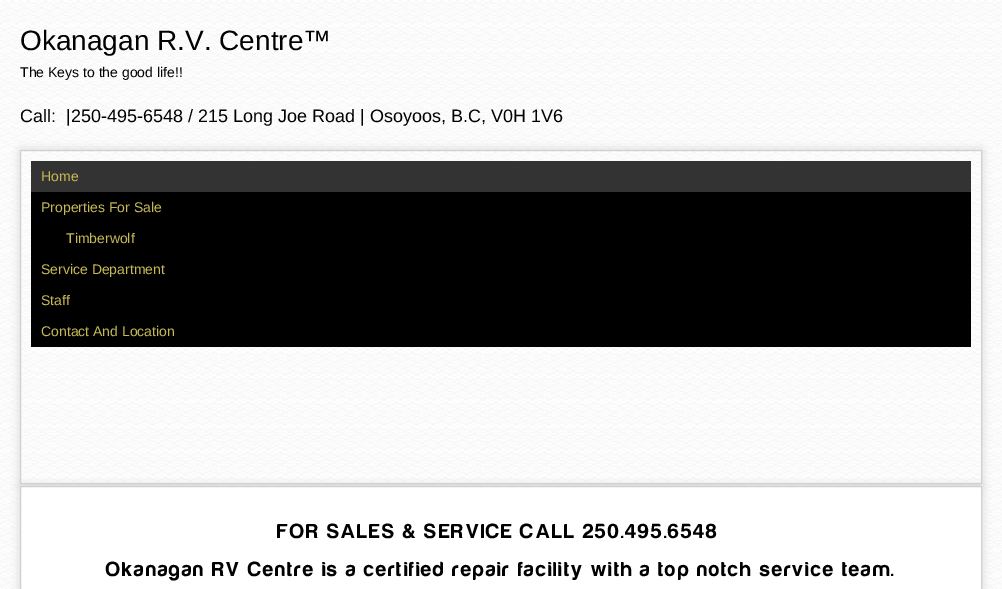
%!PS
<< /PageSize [1002 589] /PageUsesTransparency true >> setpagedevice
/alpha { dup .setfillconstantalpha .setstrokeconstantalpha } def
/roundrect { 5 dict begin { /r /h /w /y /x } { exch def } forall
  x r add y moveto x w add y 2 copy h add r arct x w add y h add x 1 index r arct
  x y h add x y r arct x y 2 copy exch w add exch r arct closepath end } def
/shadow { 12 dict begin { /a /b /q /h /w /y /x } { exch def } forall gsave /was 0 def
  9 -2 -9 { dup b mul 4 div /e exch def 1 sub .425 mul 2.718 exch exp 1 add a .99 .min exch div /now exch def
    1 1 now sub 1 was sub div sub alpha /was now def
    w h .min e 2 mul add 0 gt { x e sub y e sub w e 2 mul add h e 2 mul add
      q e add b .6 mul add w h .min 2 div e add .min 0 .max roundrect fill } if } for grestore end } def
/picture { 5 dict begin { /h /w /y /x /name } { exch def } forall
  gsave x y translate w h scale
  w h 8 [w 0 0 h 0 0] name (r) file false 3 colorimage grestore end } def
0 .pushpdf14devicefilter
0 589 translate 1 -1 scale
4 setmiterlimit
1 setgray
0 0 1002 589 rectfill
(img1.rgb) 0 0 1002 589 picture
/LiberationSans-Regular [28 0 0 -28 0 0] selectfont
0 setgray
20 50 moveto (Okanagan R.V. Centre™) show
/LiberationSans-Regular [14 0 0 -14 0 0] selectfont
20 77 moveto (The Keys to the good life!!) show
/LiberationSans-Regular [18 0 0 -18 0 0] selectfont
20 122 moveto (Call:  |250-495-6548 / 215 Long Joe Road | Osoyoos, B.C, V0H 1V6) show
0.82 setgray
20 150 962 334 0 5 1 shadow
(img2.rgb) 21 151 960 332 picture
20.5 150.5 961 333 rectstroke
0 setgray
31 192 940 155 rectfill
0.2 setgray
31 161 940 31 rectfill
/LiberationSans-Regular [14 0 0 -14 0 0] selectfont
0.78 0.725 0.337 setrgbcolor
41 181 moveto (Home) show
41 212 moveto (Properties For Sale) show
66 243 moveto (Timberwolf) show
41 274 moveto (Service Department) show
41 305 moveto (Staff) show
41 336 moveto (Contact And Location) show
0.82 setgray
20 486 962 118 0 5 1 shadow
1 setgray
newpath 20.5 486.5 moveto 981.5 486.5 lineto 981.5 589.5 lineto 20.5 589.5 lineto closepath gsave fill grestore
0.82 setgray
stroke
/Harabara-Bold [21 0 0 -21 0 0] selectfont
0 setgray
277 538 moveto 2 0 (FOR SALES & SERVICE CALL 250.495.6548) ashow
106 576 moveto 2 0 (Okanagan RV Centre is a certified repair facility with a top notch service team.) ashow
.poppdf14devicefilter showpage
